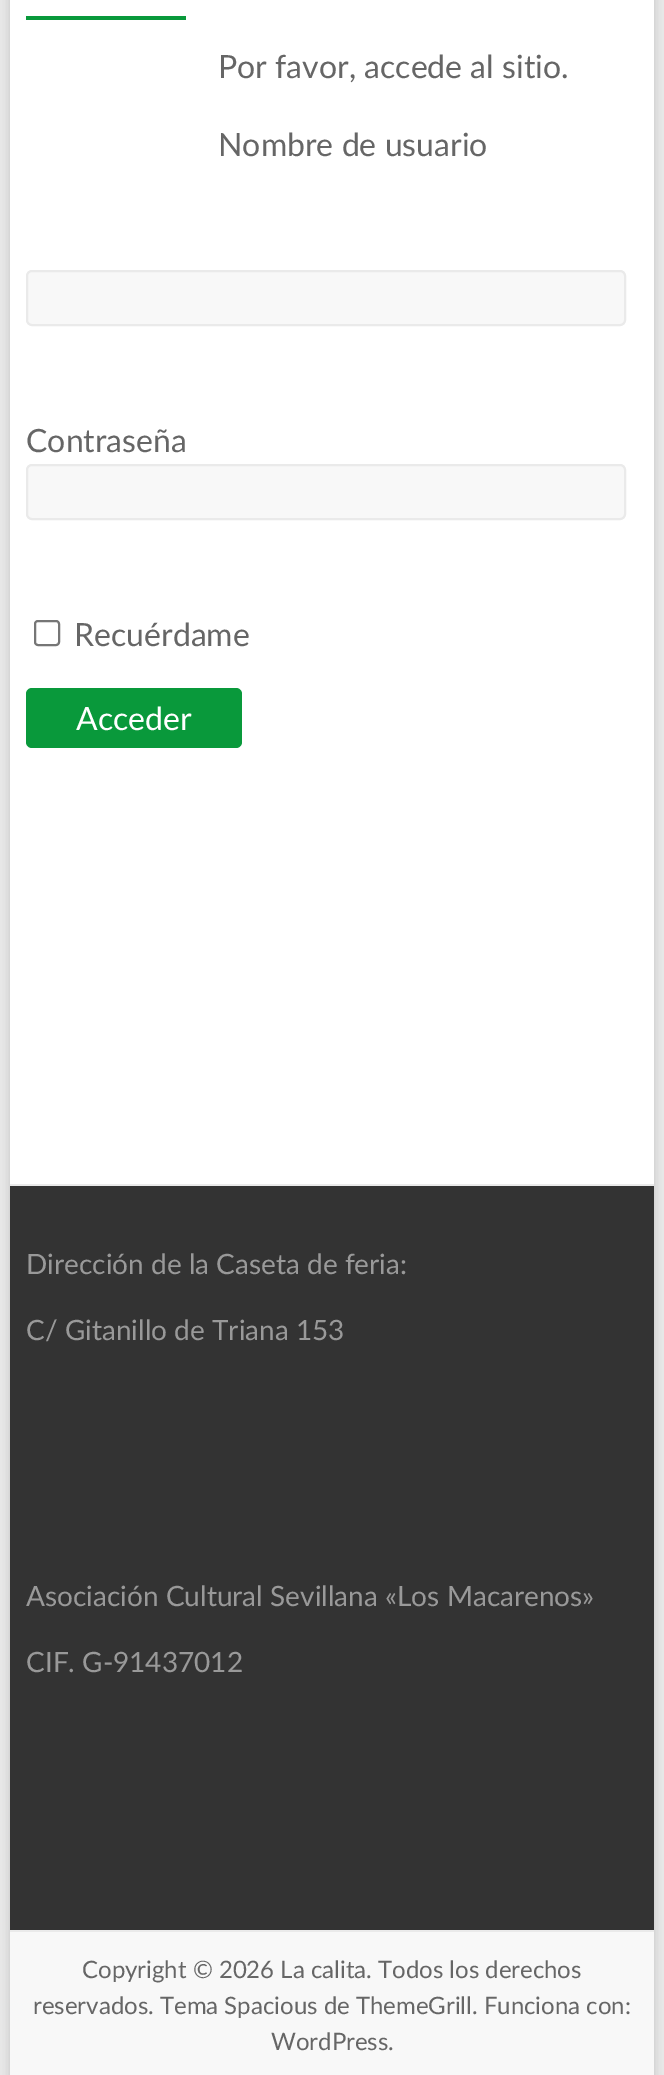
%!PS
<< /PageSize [664 2075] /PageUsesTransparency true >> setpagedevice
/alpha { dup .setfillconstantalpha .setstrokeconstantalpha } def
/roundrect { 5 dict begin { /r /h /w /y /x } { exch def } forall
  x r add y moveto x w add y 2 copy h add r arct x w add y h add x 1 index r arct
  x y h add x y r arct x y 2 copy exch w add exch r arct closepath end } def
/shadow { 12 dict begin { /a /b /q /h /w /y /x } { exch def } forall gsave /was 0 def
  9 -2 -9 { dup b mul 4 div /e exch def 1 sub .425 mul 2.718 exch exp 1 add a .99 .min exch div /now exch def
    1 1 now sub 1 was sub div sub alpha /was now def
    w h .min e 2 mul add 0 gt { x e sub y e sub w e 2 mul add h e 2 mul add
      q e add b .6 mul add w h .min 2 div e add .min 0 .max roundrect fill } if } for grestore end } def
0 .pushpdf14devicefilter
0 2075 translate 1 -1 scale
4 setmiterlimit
0.918 setgray
0 0 664 2075 rectfill
0.392 setgray
10 -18 644 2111 0 6 0.3 shadow
1 setgray
10 0 644 1184 rectfill
0.035 0.6 0.231 setrgbcolor
26 16 160 4 rectfill
/Lato-Regular [32 0 0 -32 0 0] selectfont
0.4 setgray
218 78 moveto (Por favor, accede al sitio.) show
218 156 moveto (Nombre de usuario) show
0.973 setgray
27 271 598 54 5 roundrect gsave fill grestore
0.918 setgray
2 setlinewidth
stroke
0.4 setgray
26 452 moveto (Contraseña) show
0.973 setgray
27 465 598 54 5 roundrect gsave fill grestore
0.918 setgray
stroke
0.463 setgray
35 621 24 24 3 roundrect stroke
0.4 setgray
74 646 moveto (Recuérdame) show
0.035 0.6 0.231 setrgbcolor
26 688 216 60 6 roundrect fill
1 setgray
76 730 moveto (Acceder) show
0.2 setgray
10 1186 644 744 rectfill
0.918 setgray
10 1184 644 2 rectfill
/Lato-Regular [28 0 0 -28 0 0] selectfont
0.6 setgray
26 1274 moveto (Dirección de la Caseta de feria:) show
26 1340 moveto (C/ Gitanillo de Triana 153) show
26 1606 moveto (Asociación Cultural Sevillana «Los Macarenos») show
26 1672 moveto (CIF. G-91437012) show
0.973 setgray
10 1932 644 143 rectfill
0.918 setgray
10 1930 644 2 rectfill
/Lato-Regular [24 0 0 -24 0 0] selectfont
0.4 setgray
82 1978 moveto (Copyright © 2026 La calita. Todos los derechos) show
33 2014 moveto (reservados. Tema Spacious de ThemeGrill. Funciona con:) show
271 2050 moveto (WordPress.) show
.poppdf14devicefilter showpage
